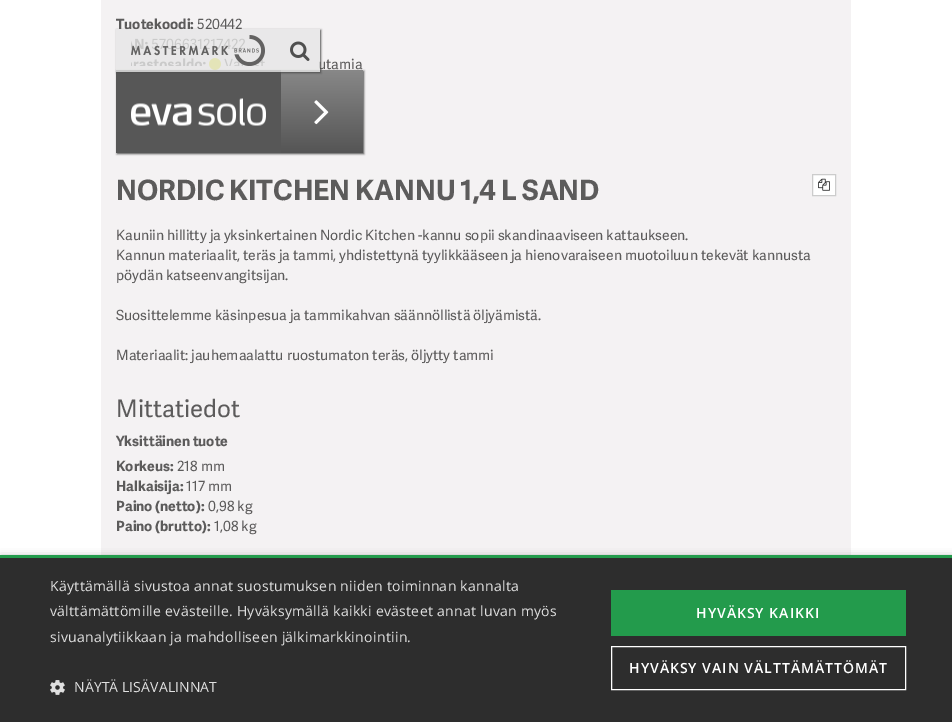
%!PS
<< /PageSize [952 722] /PageUsesTransparency true >> setpagedevice
/alpha { dup .setfillconstantalpha .setstrokeconstantalpha } def
/roundrect { 5 dict begin { /r /h /w /y /x } { exch def } forall
  x r add y moveto x w add y 2 copy h add r arct x w add y h add x 1 index r arct
  x y h add x y r arct x y 2 copy exch w add exch r arct closepath end } def
/shadow { 12 dict begin { /a /b /q /h /w /y /x } { exch def } forall gsave /was 0 def
  9 -2 -9 { dup b mul 4 div /e exch def 1 sub .425 mul 2.718 exch exp 1 add a .99 .min exch div /now exch def
    1 1 now sub 1 was sub div sub alpha /was now def
    w h .min e 2 mul add 0 gt { x e sub y e sub w e 2 mul add h e 2 mul add
      q e add b .6 mul add w h .min 2 div e add .min 0 .max roundrect fill } if } for grestore end } def
/picture { 5 dict begin { /h /w /y /x /name } { exch def } forall
  gsave x y translate w h scale
  w h 8 [w 0 0 h 0 0] name (r) file false 3 colorimage grestore end } def
0 .pushpdf14devicefilter
0 722 translate 1 -1 scale
4 setmiterlimit
1 setgray
0 0 952 722 rectfill
0.957 0.949 0.953 setrgbcolor
101 0 750 555 rectfill
/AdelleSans-Bold [14 0 0 -14 0 0] selectfont
0.361 0.357 0.357 setrgbcolor
116 29 moveto (Tuotekoodi:) show
/AdelleSans-Regular [14 0 0 -14 0 0] selectfont
197 29 moveto (520442) show
(img1.rgb) 209 58 12 12 picture
318 69 moveto (utamia) show
/AdelleSans-Bold [28 0 0 -28 0 0] selectfont
116 200 moveto (NORDIC KITCHEN KANNU 1,4 L SAND) show
1 setgray
newpath 812.5 174.5 moveto 835.5 174.5 lineto 835.5 195.5 lineto 812.5 195.5 lineto closepath gsave fill grestore
0.8 setgray
stroke
(img2.rgb) 818 178 12 13 picture
/AdelleSans-Regular [14 0 0 -14 0 0] selectfont
0.361 0.357 0.357 setrgbcolor
116 240 moveto (Kauniin hillitty ja yksinkertainen Nordic Kitchen -kannu sopii skandinaaviseen kattaukseen.) show
116 260 moveto (Kannun materiaalit, teräs ja tammi, yhdistettynä tyylikkääseen ja hienovaraiseen muotoiluun tekevät kannusta) show
116 280 moveto (pöydän katseenvangitsijan.) show
116 320 moveto (Suosittelemme käsinpesua ja tammikahvan säännöllistä öljyämistä.) show
116 360 moveto (Materiaalit: jauhemaalattu ruostumaton teräs, öljytty tammi) show
/AdelleSans-Regular [24 0 0 -24 0 0] selectfont
116 417 moveto (Mittatiedot) show
/AdelleSans-Bold [14 0 0 -14 0 0] selectfont
116 446 moveto (Yksittäinen tuote) show
116 471 moveto (Korkeus:) show
/AdelleSans-Regular [14 0 0 -14 0 0] selectfont
177 471 moveto (218 mm) show
/AdelleSans-Bold [14 0 0 -14 0 0] selectfont
116 491 moveto (Halkaisija:) show
/AdelleSans-Regular [14 0 0 -14 0 0] selectfont
186 491 moveto (117 mm) show
/AdelleSans-Bold [14 0 0 -14 0 0] selectfont
116 511 moveto (Paino \(netto\):) show
/AdelleSans-Regular [14 0 0 -14 0 0] selectfont
208 511 moveto (0,98 kg) show
/AdelleSans-Bold [14 0 0 -14 0 0] selectfont
116 531 moveto (Paino \(brutto\):) show
/AdelleSans-Regular [14 0 0 -14 0 0] selectfont
214 531 moveto (1,08 kg) show
0.31 setgray
117 71 247 83 0 1 1 shadow
0.341 setgray
116 70 165 83 rectfill
gsave newpath 281 70 moveto 363 70 lineto 363 153 lineto 281 153 lineto closepath clip newpath
<< /ShadingType 2 /ColorSpace /DeviceRGB /Coords [322 70 322 153] /Extend [true true] /Function << /FunctionType 2 /Domain [0 1] /C0 [0.533 0.533 0.533] /C1 [0.333 0.333 0.333] /N 1 >> >> shfill grestore
gsave
newpath 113 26 moveto 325 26 lineto 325 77 lineto 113 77 lineto closepath 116 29 moveto 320 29 lineto 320 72 lineto 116 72 lineto closepath eoclip newpath
0.31 setgray
117 30 204 43 0 1 1 shadow
grestore
0.8 alpha
0.902 setgray
116 29 164 43 rectfill
1 alpha
(img3.rgb) 131 35 134 31 picture
0.8 alpha
280 29 40 43 rectfill
1 alpha
(img4.rgb) 290 41 20 20 picture
(img5.rgb) 131 98 135 28 picture
(img6.rgb) 314 100 15 25 picture
0 setgray
1 557 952 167 0 4 0.35 shadow
0.176 setgray
0 558 952 164 rectfill
0.137 0.608 0.298 setrgbcolor
0 555 952 3 rectfill
/OpenSans-Regular [14 0 0 -14 0 0] selectfont
0.878 setgray
50 591 moveto 0.3 0 (Käyttämällä sivustoa annat suostumuksen niiden toiminnan kannalta) ashow
50 616 moveto 0.3 0 (välttämättömille evästeille. Hyväksymällä kaikki evästeet annat luvan myös) ashow
50 642 moveto 0.3 0 (sivuanalytiikkaan ja mahdolliseen jälkimarkkinointiin.) ashow
(img7.rgb) 50 680 15 15 picture
74 692 moveto 0.1 0 (NÄYTÄ LISÄVALINNAT) ashow
0.137 0.608 0.298 setrgbcolor
611 590 295 46 rectfill
/OpenSans-SemiBold [14 0 0 -14 0 0] selectfont
1 setgray
696 618 moveto 1 0 (HYVÄKSY KAIKKI) ashow
611.5 646.5 294 43 rectstroke
629 673 moveto 1 0 (HYVÄKSY VAIN VÄLTTÄMÄTTÖMÄT) ashow
.poppdf14devicefilter showpage
